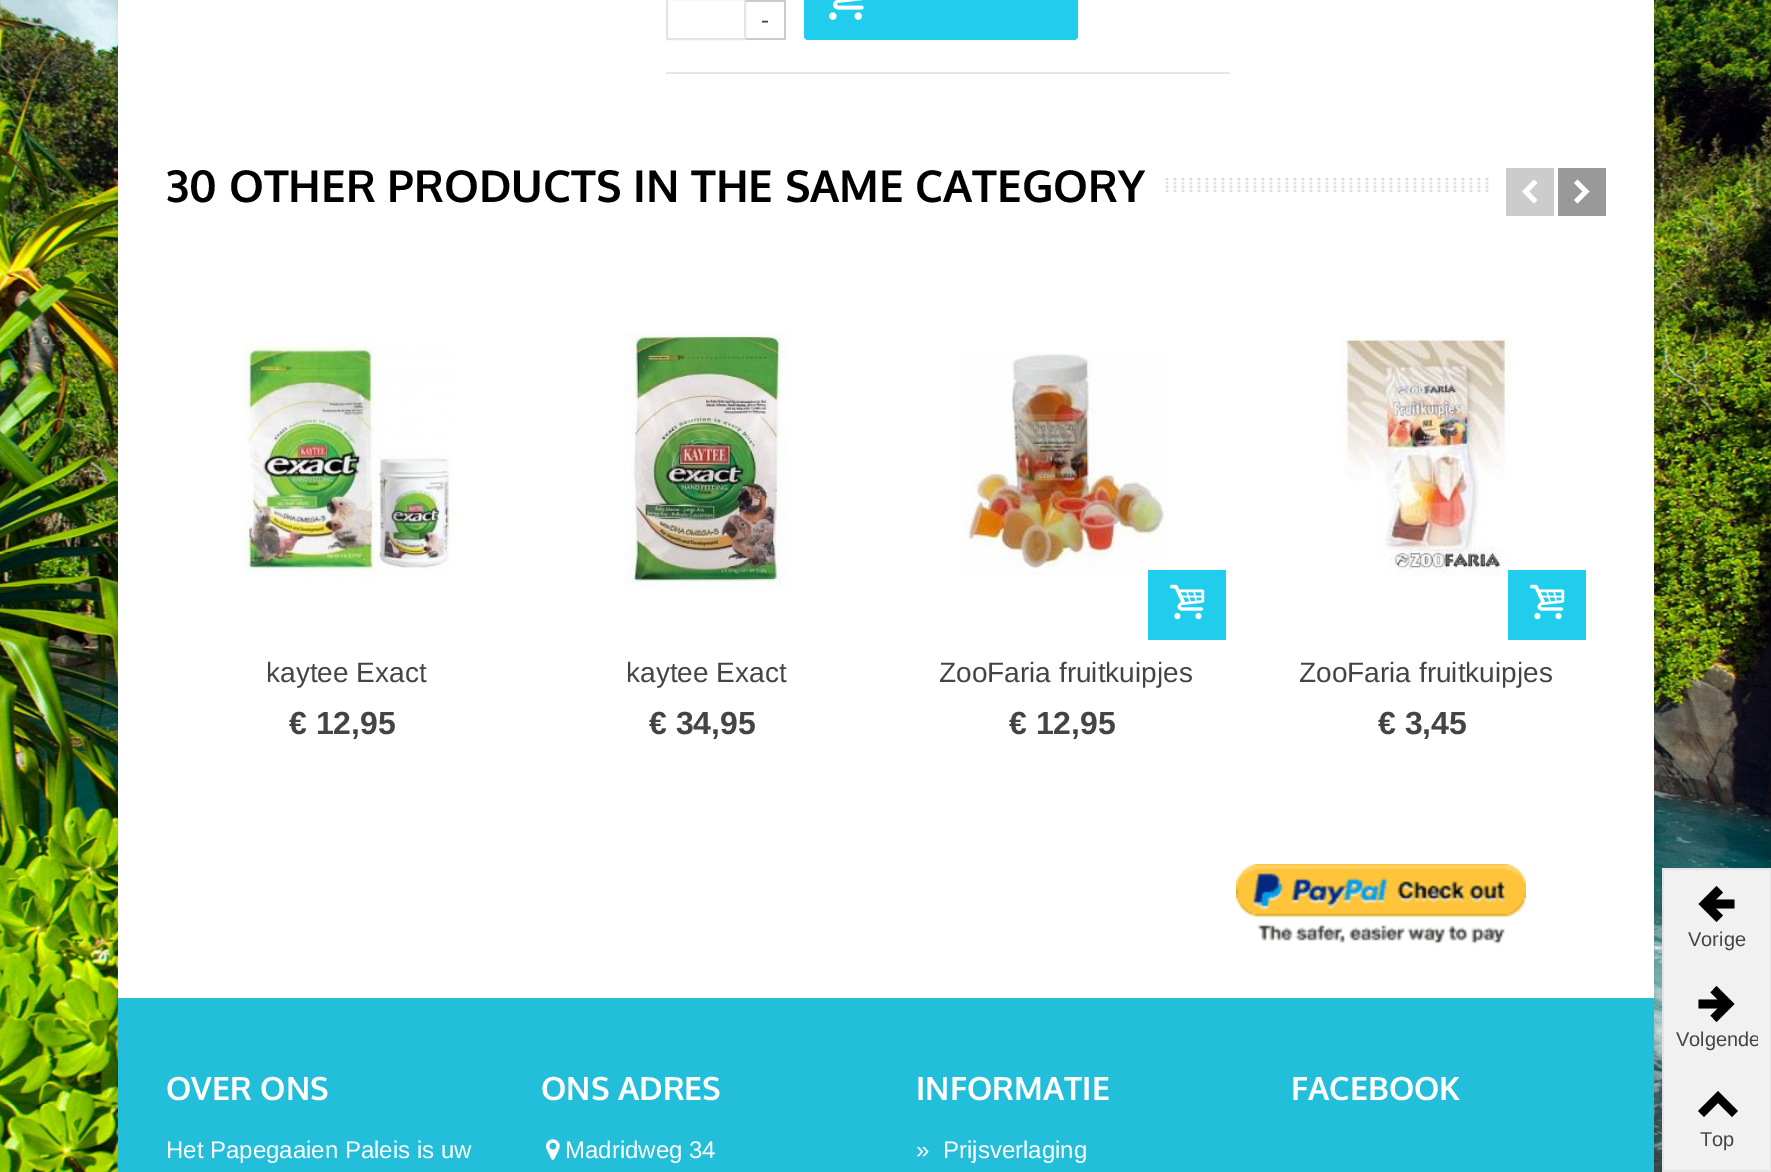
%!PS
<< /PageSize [1771 1172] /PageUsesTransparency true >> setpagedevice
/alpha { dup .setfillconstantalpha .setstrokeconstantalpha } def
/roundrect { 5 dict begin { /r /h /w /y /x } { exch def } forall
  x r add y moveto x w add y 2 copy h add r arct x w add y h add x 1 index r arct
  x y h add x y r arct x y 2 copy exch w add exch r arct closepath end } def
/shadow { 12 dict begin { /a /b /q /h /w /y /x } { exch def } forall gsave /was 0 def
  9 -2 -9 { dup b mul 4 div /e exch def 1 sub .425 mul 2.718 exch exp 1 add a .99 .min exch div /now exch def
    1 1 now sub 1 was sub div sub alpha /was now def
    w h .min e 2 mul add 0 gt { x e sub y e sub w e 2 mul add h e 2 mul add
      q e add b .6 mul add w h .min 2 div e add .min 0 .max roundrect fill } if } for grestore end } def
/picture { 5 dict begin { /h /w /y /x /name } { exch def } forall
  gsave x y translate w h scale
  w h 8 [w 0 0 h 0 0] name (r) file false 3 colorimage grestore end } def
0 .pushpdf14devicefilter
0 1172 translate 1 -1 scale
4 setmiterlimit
1 setgray
0 0 1771 1172 rectfill
(img1.rgb) 0 0 1771 1172 picture
0 setgray
118 -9 1536 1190 0 3 0.1 shadow
1 setgray
118 0 1536 998 rectfill
0.898 setgray
666 72 564 2 rectfill
2 setlinewidth
667 -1 78 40 rectstroke
0.8 setgray
746 0 40 2 rectfill
784 0 2 40 rectfill
746 38 40 2 rectfill
/LiberationSans-Regular [24 0 0 -24 0 0] selectfont
0.267 setgray
761 28 moveto (-) show
0.129 0.804 0.925 setrgbcolor
804 -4 274 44 4 roundrect fill
(img2.rgb) 829 0 35 20 picture
(img3.rgb) 1165 178 324 14 picture
/Oxygen-Bold [44 0 0 -44 0 0] selectfont
0 setgray
166 202 moveto (30 OTHER PRODUCTS IN THE SAME CATEGORY) show
0.8 setgray
1506 168 48 48 rectfill
1 setgray
newpath 1522 191.5 moveto 1534 179.5 lineto 1537.5 183 lineto 1529 191.5 lineto 1537.5 200 lineto 1534 203.5 lineto closepath fill
0.6 setgray
1558 168 48 48 rectfill
1 setgray
newpath 1574 200 moveto 1582.5 191.5 lineto 1574 183 lineto 1577.5 179.5 lineto 1589.5 191.5 lineto 1577.5 203.5 lineto closepath fill
(img4.rgb) 242 342 215 235 picture
/LiberationSans-Regular [28 0 0 -28 0 0] selectfont
0.267 setgray
266 682 moveto (kaytee Exact) show
/LiberationSans-Bold [32 0 0 -32 0 0] selectfont
289 734 moveto (€ 12,95) show
(img5.rgb) 623 332 167 259 picture
/LiberationSans-Regular [28 0 0 -28 0 0] selectfont
626 682 moveto (kaytee Exact) show
/LiberationSans-Bold [32 0 0 -32 0 0] selectfont
649 734 moveto (€ 34,95) show
(img6.rgb) 961 352 207 223 picture
0.129 0.804 0.925 setrgbcolor
1148 570 78 70 rectfill
(img7.rgb) 1170 584 35 36 picture
/LiberationSans-Regular [28 0 0 -28 0 0] selectfont
0.267 setgray
939 682 moveto (ZooFaria fruitkuipjes) show
/LiberationSans-Bold [32 0 0 -32 0 0] selectfont
1009 734 moveto (€ 12,95) show
(img8.rgb) 1341 336 172 240 picture
0.129 0.804 0.925 setrgbcolor
1508 570 78 70 rectfill
(img7.rgb) 1530 584 35 36 picture
/LiberationSans-Regular [28 0 0 -28 0 0] selectfont
0.267 setgray
1299 682 moveto (ZooFaria fruitkuipjes) show
/LiberationSans-Bold [32 0 0 -32 0 0] selectfont
1378 734 moveto (€ 3,45) show
(img9.rgb) 1236 864 290 81 picture
0.133 0.745 0.855 setrgbcolor
118 998 1536 174 rectfill
/Oxygen-Bold [32 0 0 -32 0 0] selectfont
1 setgray
166 1100 moveto (OVER ONS) show
/LiberationSans-Regular [24 0 0 -24 0 0] selectfont
166 1158 moveto (Het Papegaaien Paleis is uw) show
/Oxygen-Bold [32 0 0 -32 0 0] selectfont
541 1100 moveto (ONS ADRES) show
(img10.rgb) 546 1139 14 21 picture
/LiberationSans-Regular [24 0 0 -24 0 0] selectfont
565 1158 moveto (Madridweg 34) show
/Oxygen-Bold [32 0 0 -32 0 0] selectfont
916 1100 moveto (INFORMATIE) show
/LiberationSans-Regular [24 0 0 -24 0 0] selectfont
916 1158 moveto (») show
943 1158 moveto (Prijsverlaging) show
/Oxygen-Bold [32 0 0 -32 0 0] selectfont
1291 1100 moveto (FACEBOOK) show
0.945 setgray
1664 870 106 300 rectfill
0.898 setgray
1662 868 109 2 rectfill
1770 868 1 304 rectfill
1662 1170 109 2 rectfill
1662 870 2 300 rectfill
0 setgray
newpath 1716.5 922 moveto 1698.5 904 lineto 1716.5 886 lineto 1723 892.5 lineto 1716 899.5 lineto 1734.5 899.5 lineto 1734.5 908.5 lineto 1716 908.5 lineto 1723 915.5 lineto closepath fill
/LiberationSans-Regular [20 0 0 -20 0 0] selectfont
0.267 setgray
1688 946 moveto (Vorige) show
0 setgray
newpath 1716.5 986 moveto 1734.5 1004 lineto 1716.5 1022 lineto 1710.5 1015.5 lineto 1717.5 1008.5 lineto 1698.5 1008.5 lineto 1698.5 999.5 lineto 1717.5 999.5 lineto 1710.5 992.5 lineto closepath fill
gsave
1676 1026 82 28 rectclip
0.267 setgray
1676 1046 moveto (Volgende) show
grestore
newpath 1698 1111 moveto 1718 1091 lineto 1738 1111 lineto 1732 1117 lineto 1718 1103 lineto 1704 1117 lineto closepath fill
0.267 setgray
1700 1146 moveto (Top) show
.poppdf14devicefilter showpage
